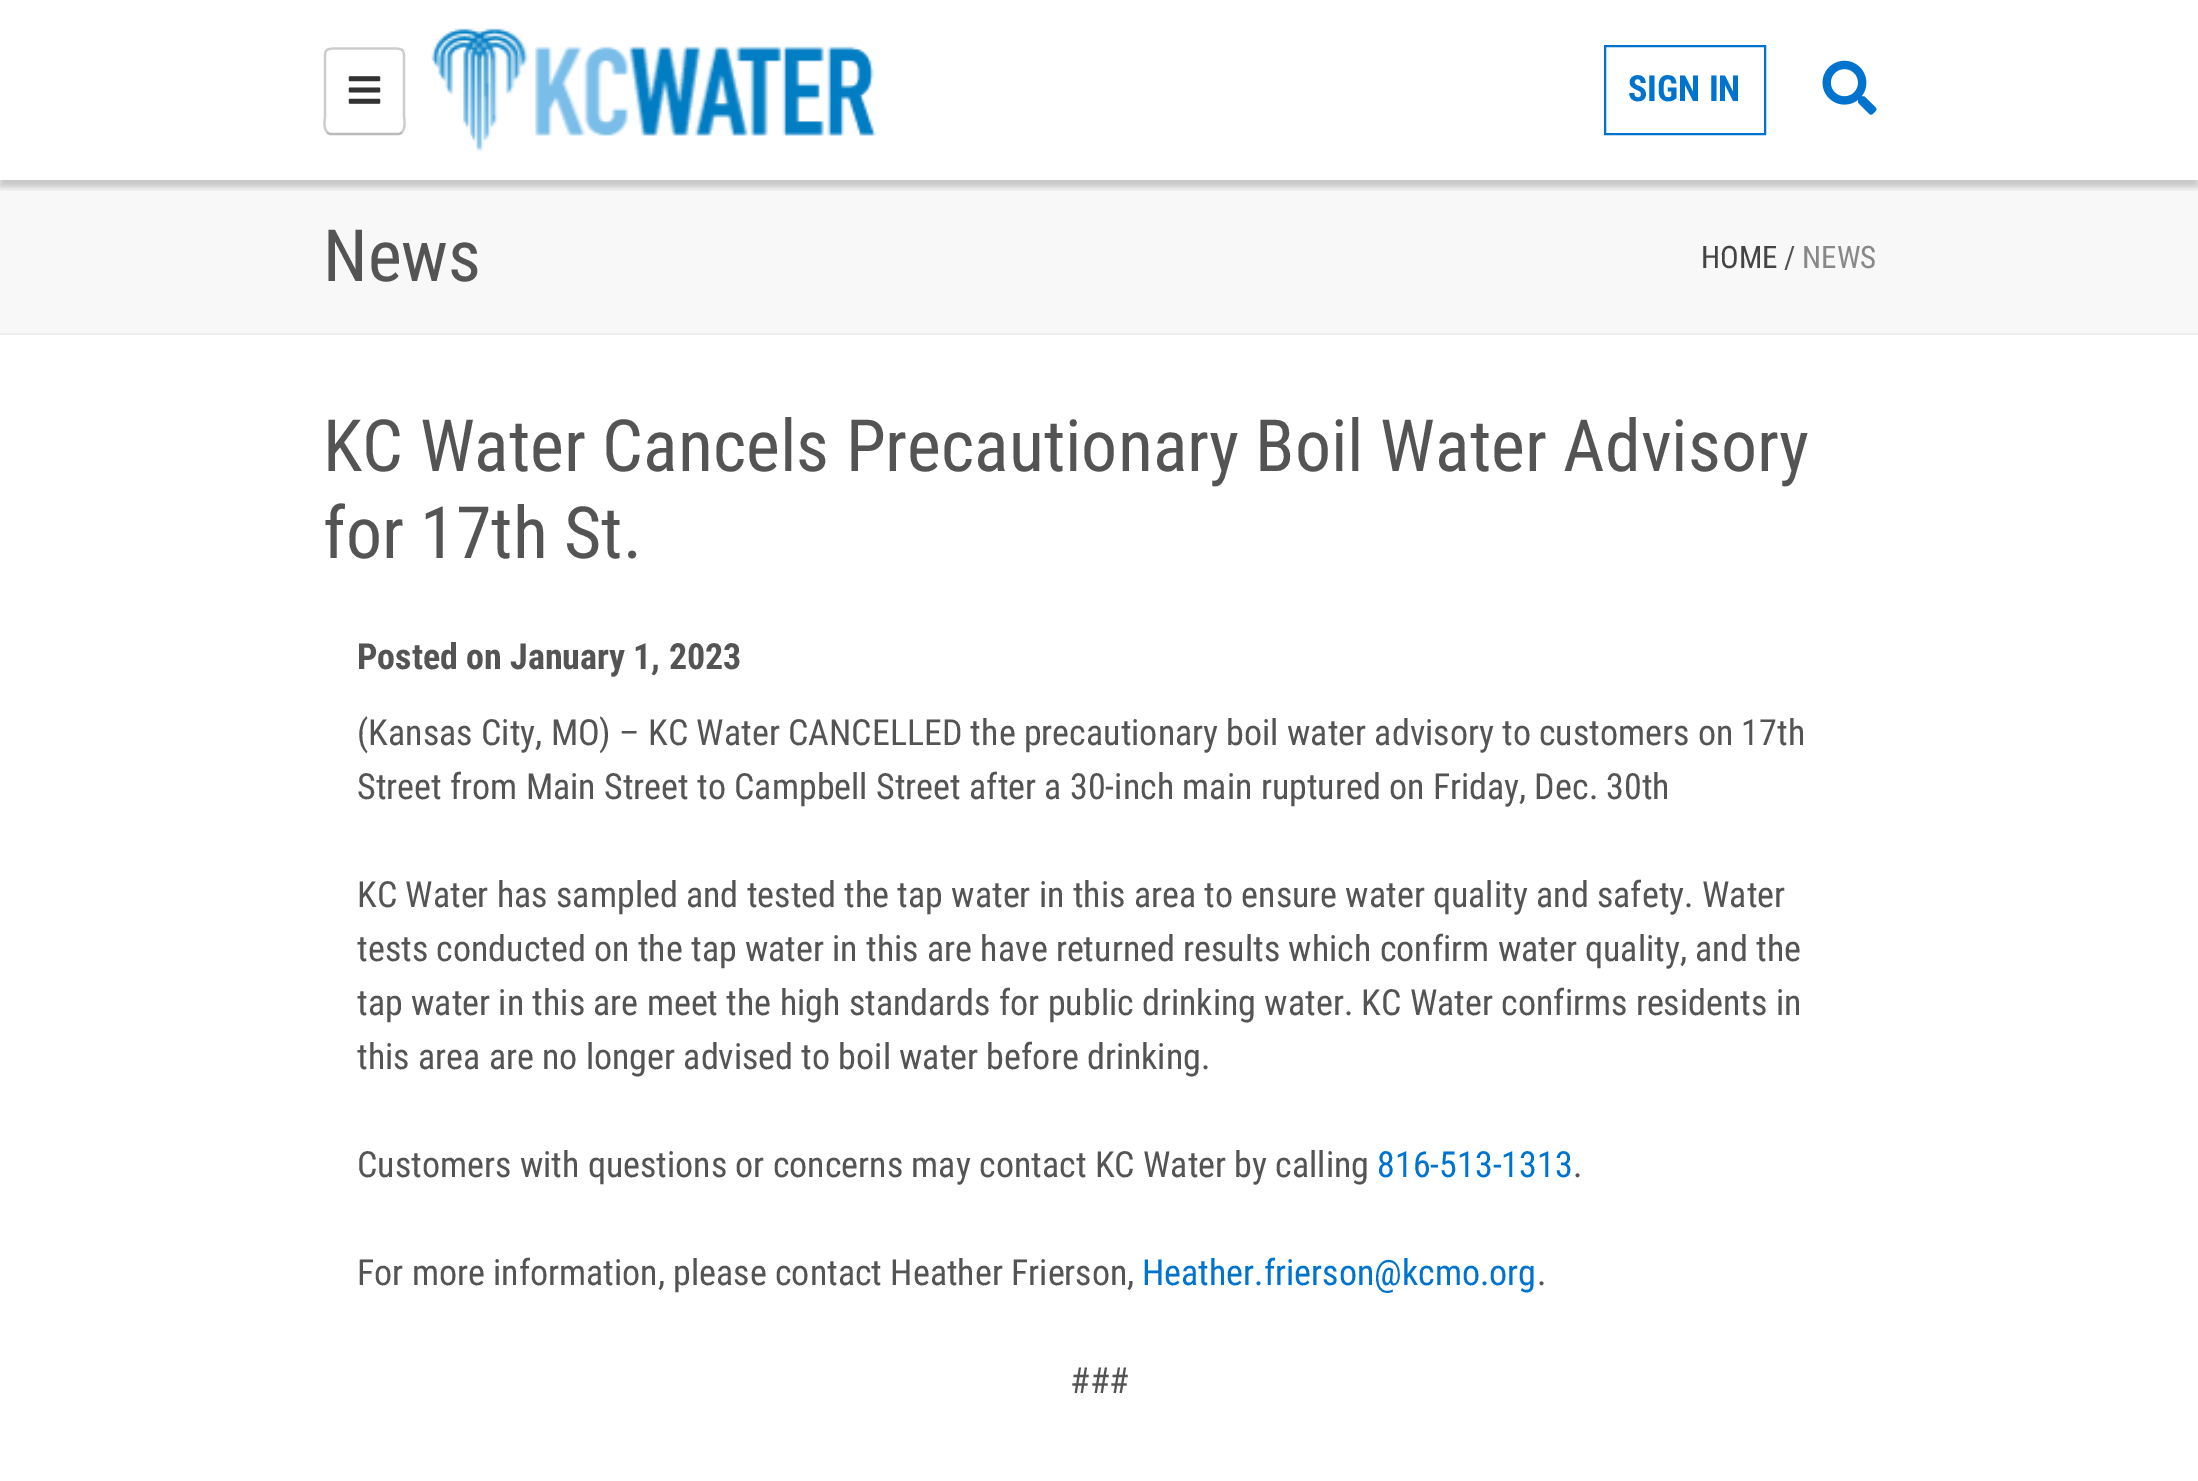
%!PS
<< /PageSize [2198 1481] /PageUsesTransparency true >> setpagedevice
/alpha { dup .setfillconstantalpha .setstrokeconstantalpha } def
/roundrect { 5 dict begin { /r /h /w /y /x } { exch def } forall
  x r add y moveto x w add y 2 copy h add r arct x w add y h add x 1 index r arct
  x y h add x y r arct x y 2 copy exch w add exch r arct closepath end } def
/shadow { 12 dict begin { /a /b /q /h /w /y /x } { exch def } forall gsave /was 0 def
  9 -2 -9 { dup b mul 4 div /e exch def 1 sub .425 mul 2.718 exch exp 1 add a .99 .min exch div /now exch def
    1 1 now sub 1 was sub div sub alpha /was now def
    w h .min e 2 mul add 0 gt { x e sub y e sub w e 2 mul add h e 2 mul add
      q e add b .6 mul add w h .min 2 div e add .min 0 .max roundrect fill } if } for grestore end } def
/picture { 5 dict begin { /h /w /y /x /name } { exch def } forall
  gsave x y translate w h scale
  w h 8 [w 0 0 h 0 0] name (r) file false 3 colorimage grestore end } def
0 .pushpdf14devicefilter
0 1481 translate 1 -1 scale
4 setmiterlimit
1 setgray
0 0 2198 1481 rectfill
0.973 setgray
0 180 2198 153 rectfill
gsave
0 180 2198 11 rectclip
0 setgray
0 7 2198 180 0 3.5 0.2 shadow
grestore
0.733 setgray
2.2 setlinewidth
newpath 402 132 moveto 401 133.5 399.5 134 398 134 curveto 331 134 lineto 329.5 134 328 133.5 327 132 curveto stroke
0.8 setgray
newpath 327 132 moveto 323 128.5 325 118 325 116 curveto 325 66.5 lineto 325 47.5 323 48.5 342 48.5 curveto 387 48.5 lineto 406 48.5 404 47.5 404 66.5 curveto 404 116 lineto 404 118 406 128.5 402 132 curveto stroke
(img1.rgb) 348 76 33 28 picture
(img2.rgb) 431 28 445 124 picture
0 0.451 0.812 setrgbcolor
2 setlinewidth
1605 46 160 88 rectstroke
/RobotoCondensed-Bold [36 0 0 -36 0 0] selectfont
1628 101 moveto (SIGN IN) show
(img3.rgb) 1822 60 55 55 picture
0.933 setgray
0 333 2198 2 rectfill
/RobotoCondensed-Regular [72 0 0 -72 0 0] selectfont
0.329 setgray
323 281 moveto (News) show
/RobotoCondensed-Regular [31 0 0 -31 0 0] selectfont
0.267 setgray
1701 268 moveto (HOME) show
0.329 setgray
1784 268 moveto (/) show
0.533 setgray
1802 268 moveto (NEWS) show
/RobotoCondensed-Regular [72 0 0 -72 0 0] selectfont
0.329 setgray
323 471 moveto (KC Water Cancels Precautionary Boil Water Advisory) show
323 558 moveto (for 17th St.) show
/RobotoCondensed-Bold [36 0 0 -36 0 0] selectfont
357 669 moveto (Posted on January 1, 2023) show
/RobotoCondensed-Regular [36 0 0 -36 0 0] selectfont
357 745 moveto (\(Kansas City, MO\) – KC Water CANCELLED the precautionary boil water advisory to customers on 17th) show
357 799 moveto (Street from Main Street to Campbell Street after a 30-inch main ruptured on Friday, Dec. 30th) show
357 907 moveto (KC Water has sampled and tested the tap water in this area to ensure water quality and safety. Water) show
357 961 moveto (tests conducted on the tap water in this are have returned results which confirm water quality, and the) show
357 1015 moveto (tap water in this are meet the high standards for public drinking water. KC Water confirms residents in) show
357 1069 moveto (this area are no longer advised to boil water before drinking.) show
357 1177 moveto (Customers with questions or concerns may contact KC Water by calling) show
0 0.451 0.812 setrgbcolor
1377 1177 moveto (816-513-1313) show
0.329 setgray
1573 1177 moveto (.) show
357 1285 moveto (For more information, please contact Heather Frierson,) show
0 0.451 0.812 setrgbcolor
1142 1285 moveto (Heather.frierson@kcmo.org) show
0.329 setgray
1537 1285 moveto (.) show
1070 1393 moveto (###) show
.poppdf14devicefilter showpage
